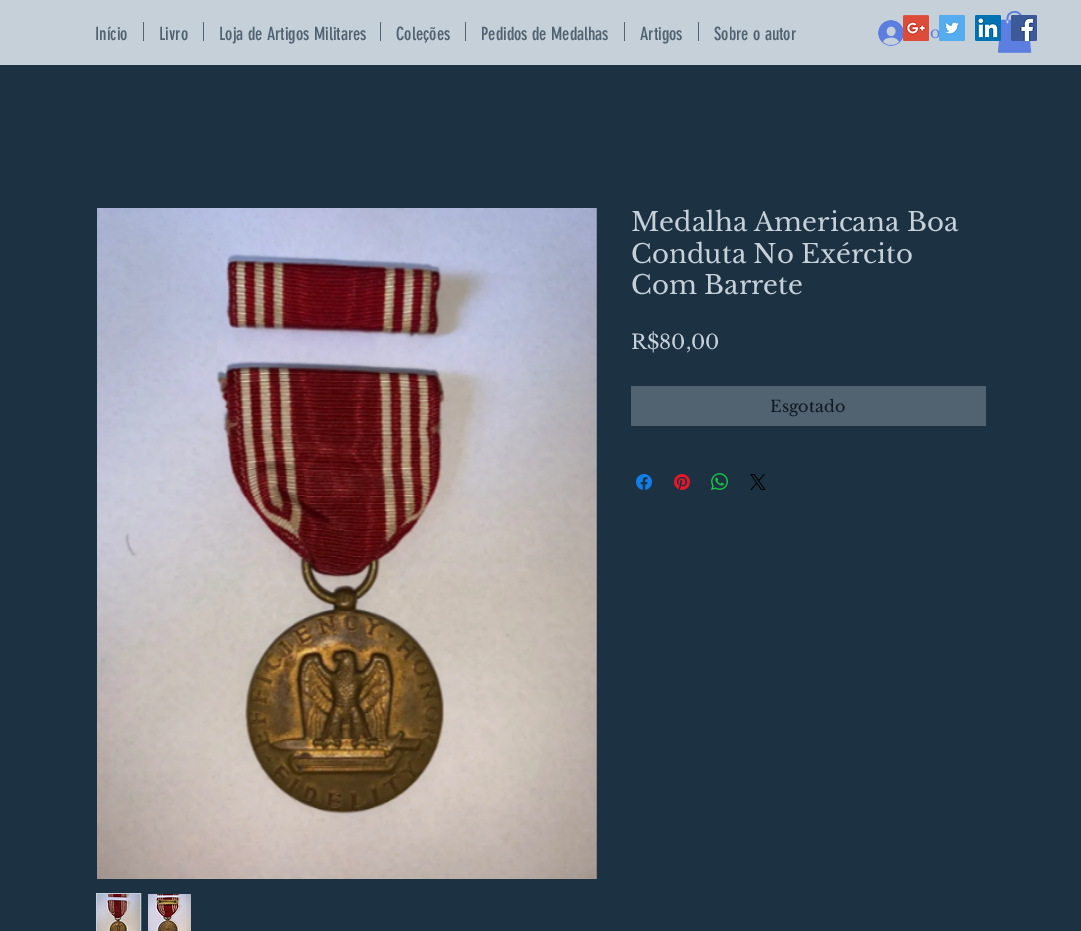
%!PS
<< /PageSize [1081 931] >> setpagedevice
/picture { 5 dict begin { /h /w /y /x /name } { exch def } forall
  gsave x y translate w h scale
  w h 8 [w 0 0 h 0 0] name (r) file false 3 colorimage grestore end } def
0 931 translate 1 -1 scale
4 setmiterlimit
0.11 0.192 0.259 setrgbcolor
0 0 1081 931 rectfill
0.773 0.816 0.851 setrgbcolor
0 0 1081 65 rectfill
/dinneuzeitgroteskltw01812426-Regular [18 0 0 -18 0 0] selectfont
0.318 0.388 0.443 setrgbcolor
95 40 moveto (Início) show
143 22 1 19 rectfill
159 40 moveto (Livro) show
203 22 1 19 rectfill
219 40 moveto (Loja de Artigos Militares) show
380 22 1 19 rectfill
396 40 moveto (Coleções) show
465 22 1 19 rectfill
481 40 moveto (Pedidos de Medalhas) show
624 22 1 19 rectfill
640 40 moveto (Artigos) show
698 22 1 19 rectfill
714 40 moveto (Sobre o autor) show
(img1.rgb) 878 20 25 26 picture
/LibreBaskerville-Regular [16 0 0 -16 0 0] selectfont
0.357 0.494 0.878 setrgbcolor
930 38 moveto (o) show
(img2.rgb) 997 11 35 42 picture
(img3.rgb) 903 15 26 26 picture
(img4.rgb) 939 15 26 26 picture
(img5.rgb) 975 15 26 26 picture
(img6.rgb) 1011 15 26 26 picture
(img7.rgb) 97 208 500 671 picture
0.773 0.816 0.851 setrgbcolor
96.5 893.5 44 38 rectstroke
(img8.rgb) 97 894 43 37 picture
(img9.rgb) 148 894 43 37 picture
/LibreBaskerville-Regular [26 0 0 -26 0 0] selectfont
631 231 moveto (Medalha Americana Boa) show
631 263 moveto (Conduta No Exército) show
631 294 moveto (Com Barrete) show
/LibreBaskerville-Regular [20 0 0 -20 0 0] selectfont
631 349 moveto (R$80,00) show
0.318 0.388 0.443 setrgbcolor
631 386 355 40 rectfill
/LibreBaskerville-Regular [16 0 0 -16 0 0] selectfont
0.055 0.094 0.129 setrgbcolor
770 412 moveto (Esgotado) show
(img10.rgb) 636 474 16 16 picture
(img11.rgb) 674 474 16 16 picture
(img12.rgb) 711 473 17 17 picture
(img13.rgb) 750 474 16 16 picture
showpage
